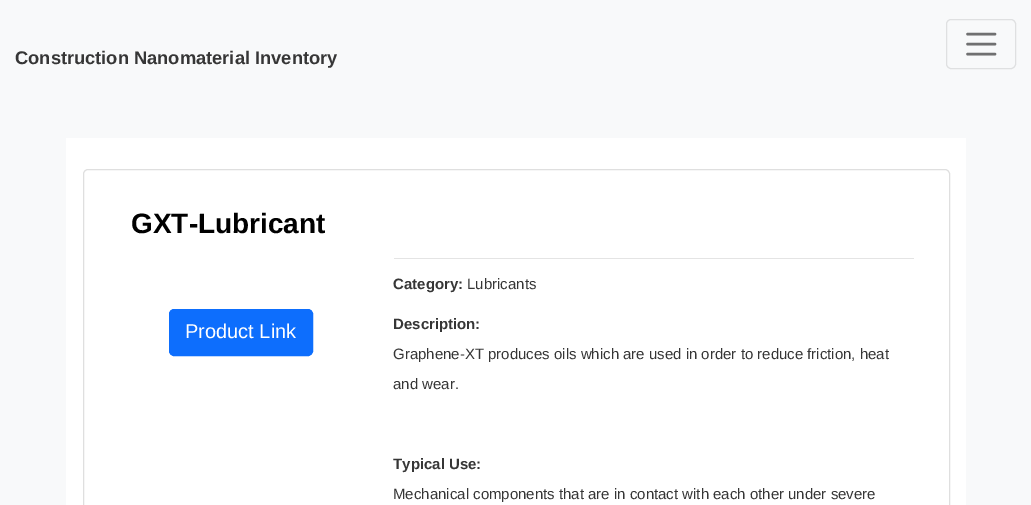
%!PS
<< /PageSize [1031 505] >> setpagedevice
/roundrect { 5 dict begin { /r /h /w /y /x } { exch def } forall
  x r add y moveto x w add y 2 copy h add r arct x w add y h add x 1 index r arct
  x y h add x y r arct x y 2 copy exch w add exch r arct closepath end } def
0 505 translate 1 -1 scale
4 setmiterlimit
0.973 0.976 0.98 setrgbcolor
0 0 1031 505 rectfill
/LiberationSans-Bold [18.3 0 0 -18.3 0 0] selectfont
0.212 setgray
15 64 moveto (Construction Nanomaterial Inventory) show
0.875 0.878 0.882 setrgbcolor
946.5 19.5 69 49 4.5 roundrect stroke
0.439 0.439 0.443 setrgbcolor
2.5 setlinewidth
1 setlinecap
newpath 967.5 34 moveto 995 34 lineto 967.5 44 moveto 995 44 lineto 967.5 54 moveto 995 54 lineto stroke
1 setgray
66 138 900 367 rectfill
0.875 setgray
1 setlinewidth
0 setlinecap
83.5 169.5 866 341 4.5 roundrect stroke
/LiberationSans-Bold [28 0 0 -28 0 0] selectfont
0 setgray
131 233 moveto (GXT-Lubricant) show
0.051 0.431 0.992 setrgbcolor
169.5 309.5 143 46 4.5 roundrect gsave fill grestore
stroke
/LiberationSans-Regular [20 0 0 -20 0 0] selectfont
1 setgray
185 338 moveto (Product Link) show
0.894 setgray
394 258 520 1 rectfill
/LiberationSans-Bold [15 0 0 -15 0 0] selectfont
0.212 setgray
393 289 moveto (Category:) show
/LiberationSans-Regular [15 0 0 -15 0 0] selectfont
467 289 moveto (Lubricants) show
/LiberationSans-Bold [15 0 0 -15 0 0] selectfont
393 329 moveto (Description:) show
/LiberationSans-Regular [15 0 0 -15 0 0] selectfont
393 359 moveto (Graphene-XT produces oils which are used in order to reduce friction, heat) show
393 389 moveto (and wear.) show
/LiberationSans-Bold [15 0 0 -15 0 0] selectfont
393 469 moveto (Typical Use:) show
/LiberationSans-Regular [15 0 0 -15 0 0] selectfont
393 499 moveto (Mechanical components that are in contact with each other under severe) show
showpage
